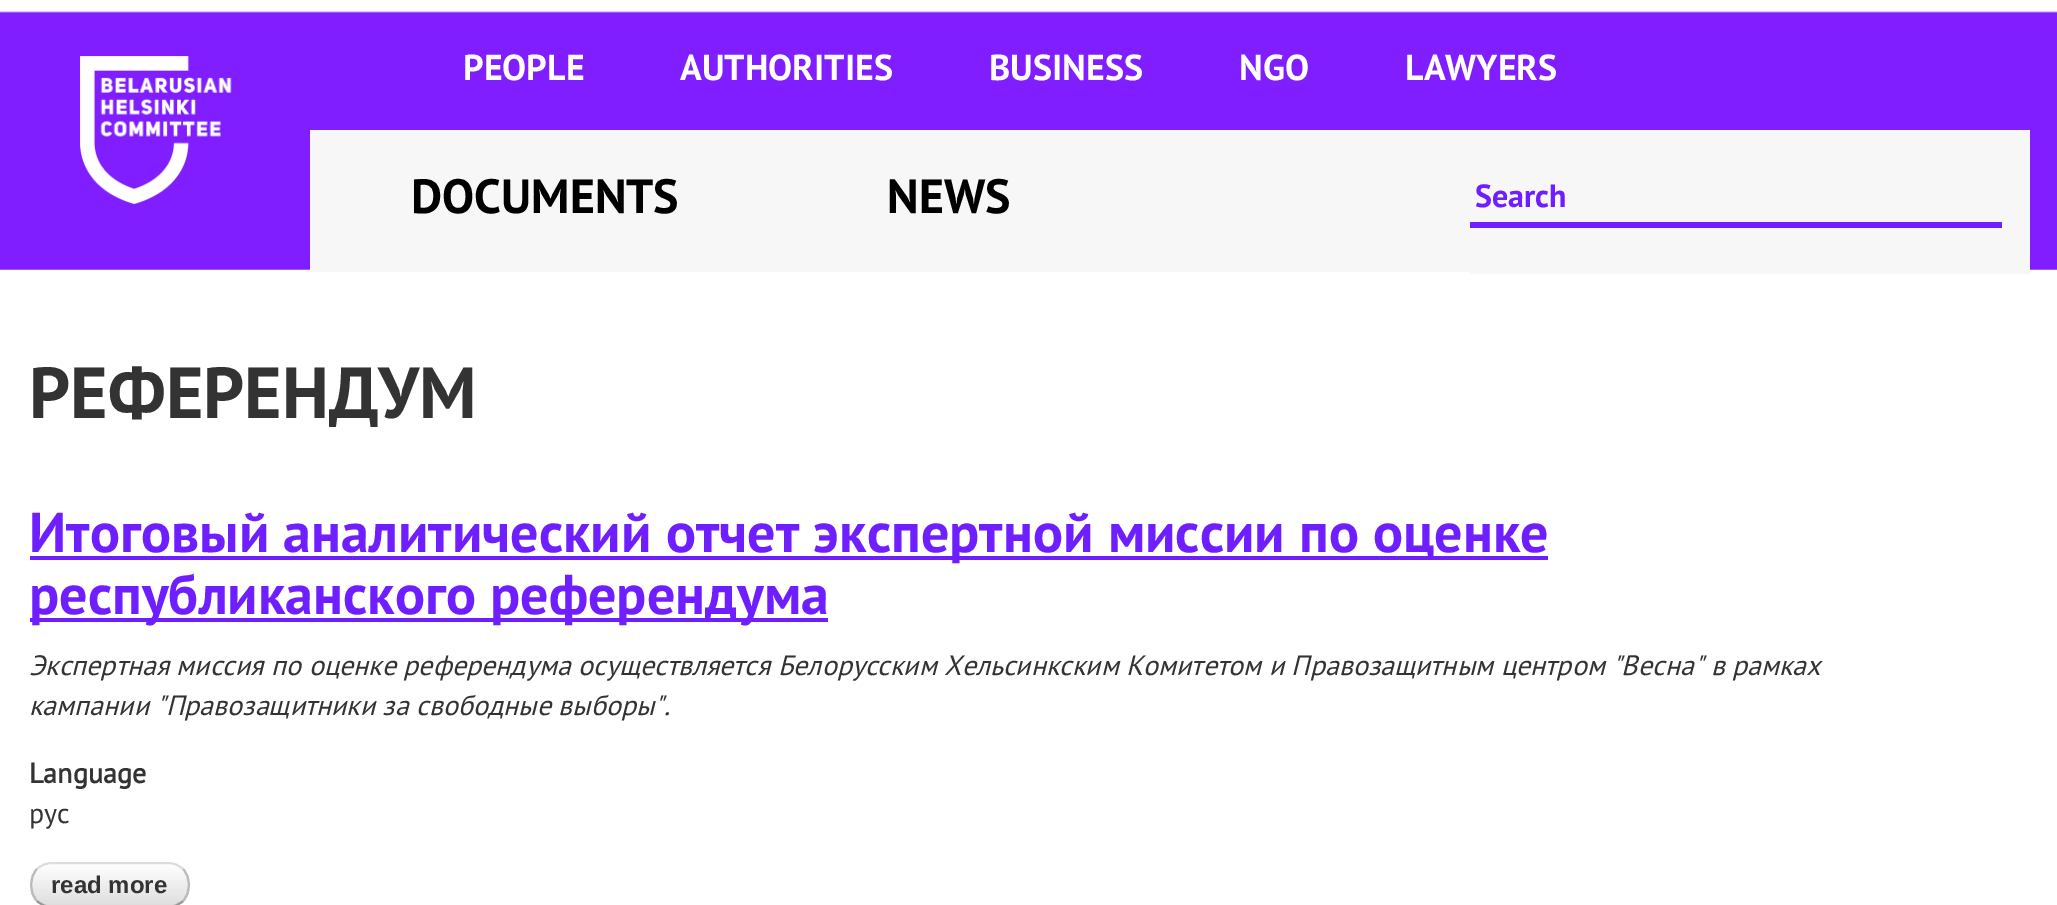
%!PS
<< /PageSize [2057 905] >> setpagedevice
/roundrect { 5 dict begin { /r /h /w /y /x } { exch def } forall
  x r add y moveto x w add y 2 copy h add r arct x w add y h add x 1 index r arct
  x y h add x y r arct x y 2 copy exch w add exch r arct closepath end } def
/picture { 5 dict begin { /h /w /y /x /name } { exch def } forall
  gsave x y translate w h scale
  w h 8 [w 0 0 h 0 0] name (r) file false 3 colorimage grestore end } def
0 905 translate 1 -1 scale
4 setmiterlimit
1 setgray
0 0 2057 905 rectfill
0.502 0.118 1 setrgbcolor
0 11 2057 259 rectfill
(img1.rgb) 0 0 2057 270 picture
(img2.rgb) 80 56 152 148 picture
/PTSans-Bold [36 0 0 -36 0 0] selectfont
1 setgray
463 80 moveto (PEOPLE) show
680 80 moveto (AUTHORITIES) show
989 80 moveto (BUSINESS) show
1239 80 moveto (NGO) show
1405 80 moveto (LAWYERS) show
0.969 setgray
310 130 1160 142 rectfill
/PTSans-Bold [48 0 0 -48 0 0] selectfont
0 setgray
411 213 moveto (DOCUMENTS) show
887 213 moveto (NEWS) show
0.969 setgray
1470 130 560 144 rectfill
0.431 0.118 1 setrgbcolor
1470 222 532 6 rectfill
/PTSans-Bold [32 0 0 -32 0 0] selectfont
1475 207 moveto (Search) show
/PTSans-Bold [72 0 0 -72 0 0] selectfont
0.2 setgray
29 418 moveto (РЕФЕРЕНДУМ) show
0.431 0.118 1 setrgbcolor
30 556 1518 4 rectfill
/PTSans-Bold [56 0 0 -56 0 0] selectfont
29 552 moveto (Итоговый аналитический отчет экспертной миссии по оценке) show
30 618 798 4 rectfill
29 614 moveto (республиканского референдума) show
/PTSans-Italic [28 0 0 -28 0 0] selectfont
0.2 setgray
29 675 moveto (Экспертная миссия по оценке референдума осуществляется Белорусским Хельсинкским Комитетом и Правозащитным центром "Весна" в рамках) show
29 715 moveto (кампании "Правозащитники за свободные выборы".) show
/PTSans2-Bold [28 0 0 -28 0 0] selectfont
29 783 moveto (Language) show
/PTSans-Regular [28 0 0 -28 0 0] selectfont
29 823 moveto (рус) show
gsave
30 862 160 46 22 roundrect clip newpath
gsave newpath 30 864 moveto 190 864 lineto 190 905 lineto 30 905 lineto closepath clip newpath
<< /ShadingType 2 /ColorSpace /DeviceRGB /Coords [32 864 32 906] /Extend [true true] /Function << /FunctionType 2 /Domain [0 1] /C0 [1 1 1] /C1 [0.867 0.867 0.867] /N 1 >> >> shfill grestore
grestore
0.867 setgray
2 setlinewidth
newpath 37 869 moveto 41 865 46.5 863 52 863 curveto 168 863 lineto 173.5 863 179 865 183 869 curveto stroke
0.733 setgray
newpath 183 869 moveto 191 877.5 191 892.5 183 901 curveto stroke
0.6 setgray
newpath 183 901 moveto 179 905 173.5 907 168 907 curveto 52 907 lineto 46.5 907 41 905 37 901 curveto stroke
0.733 setgray
newpath 37 901 moveto 29 892.5 29 877.5 37 869 curveto stroke
/LiberationSans-Bold [24 0 0 -24 0 0] selectfont
0.2 setgray
51 893 moveto (read more) show
showpage
